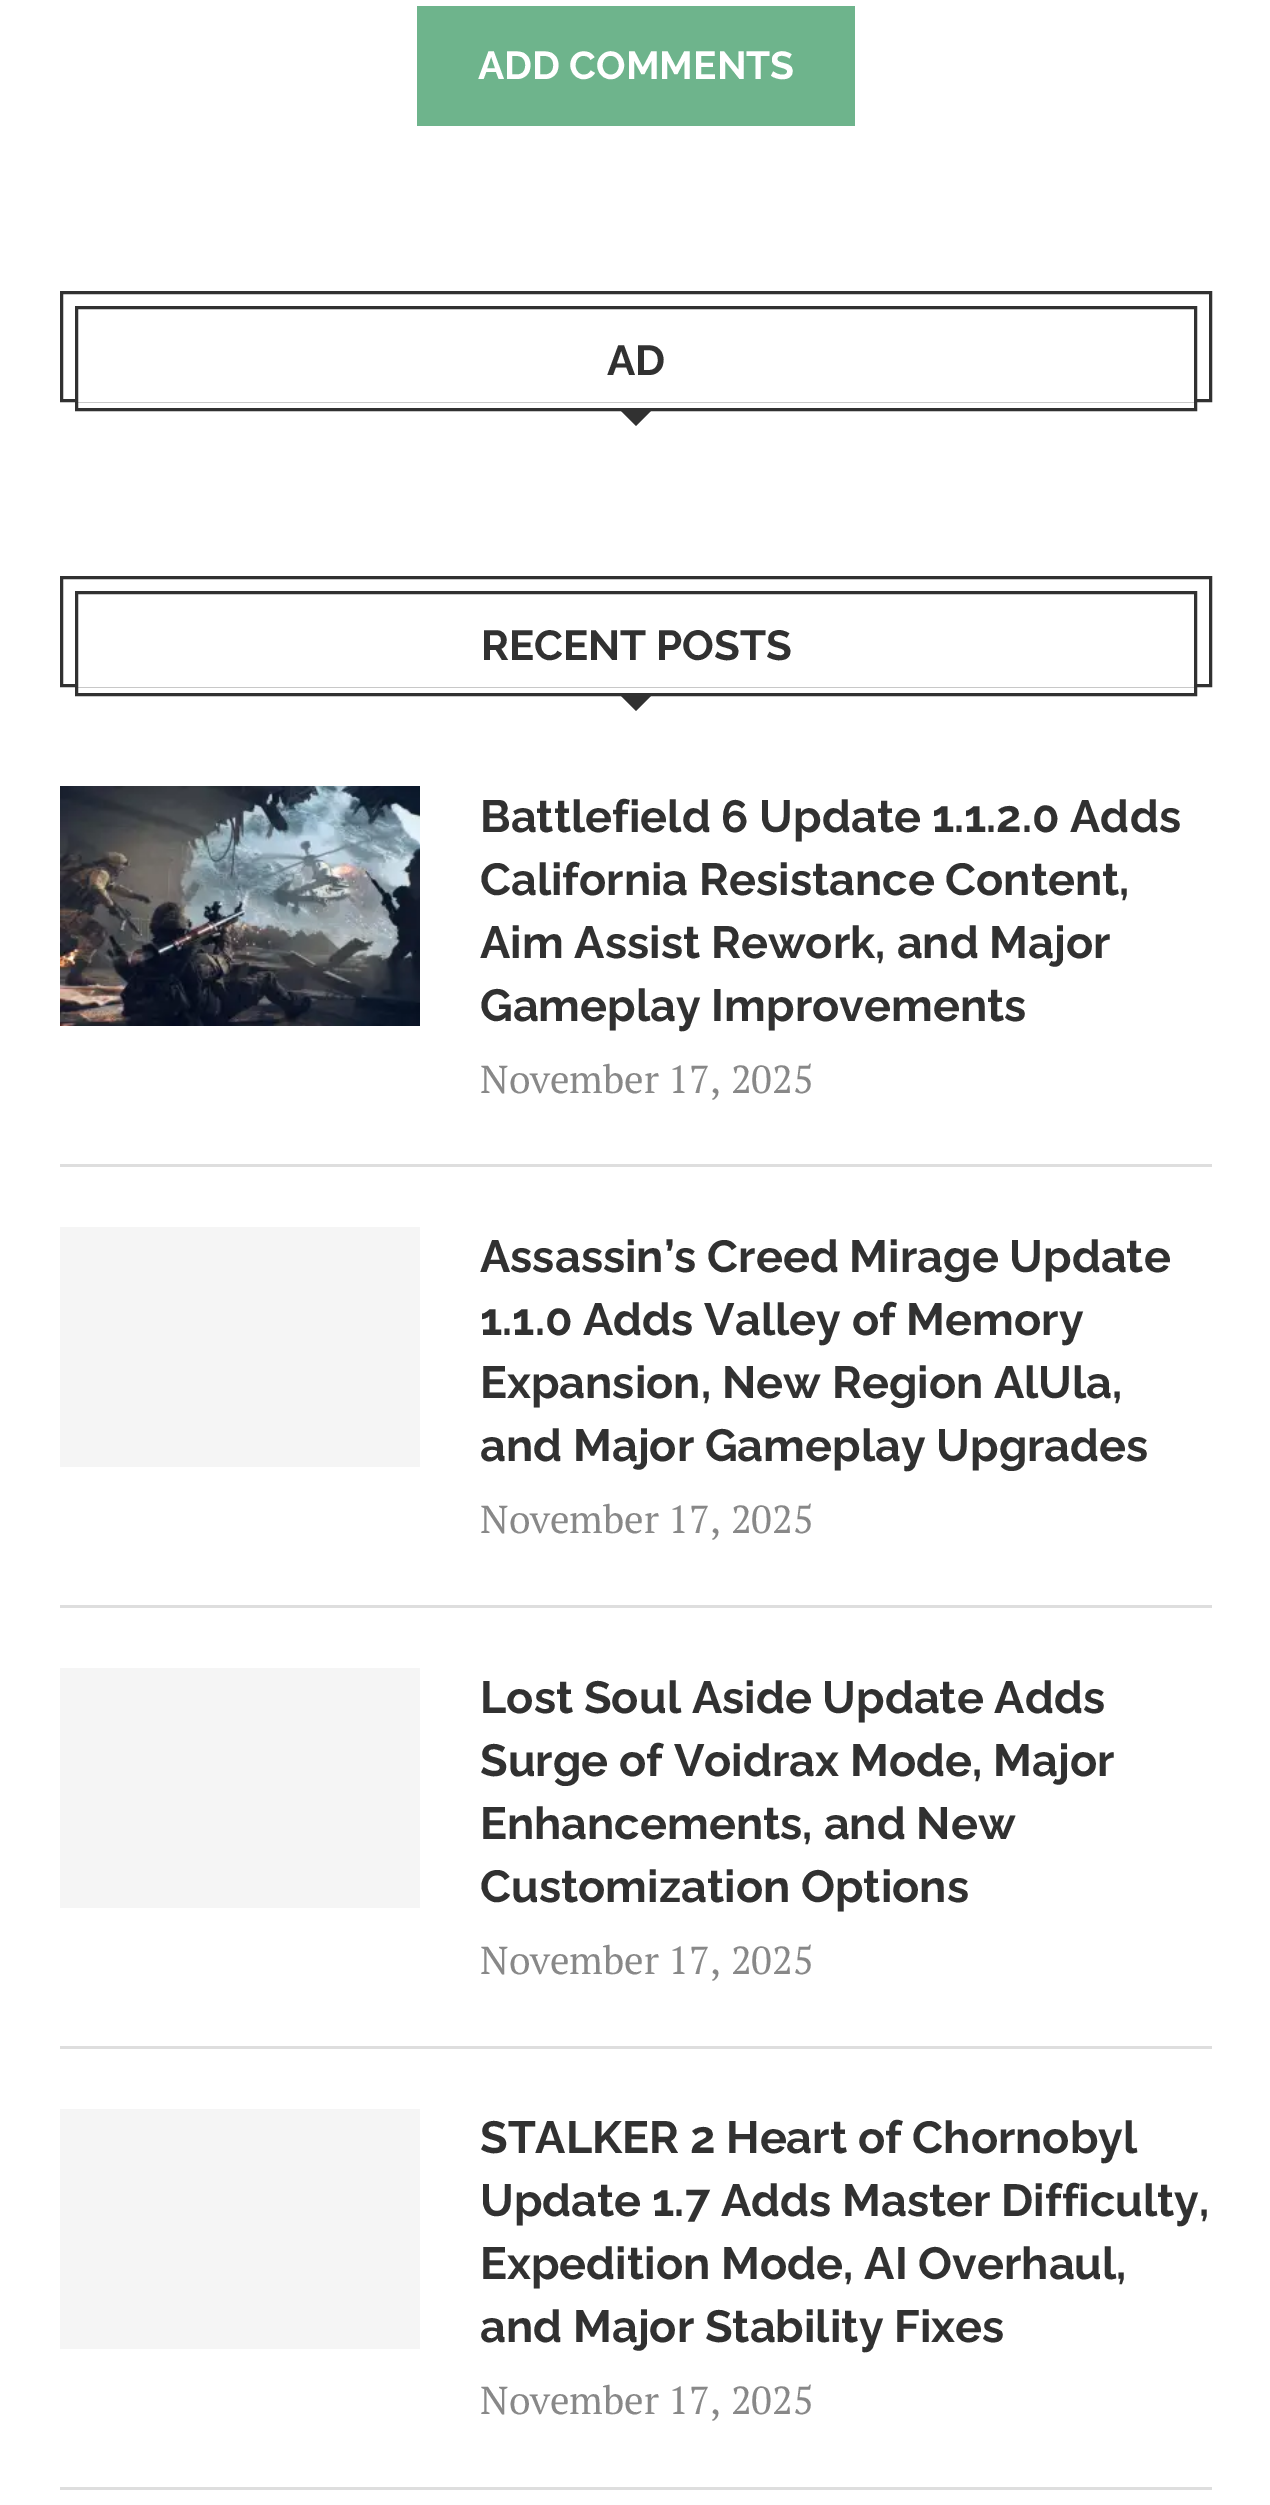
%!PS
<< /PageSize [1270 2505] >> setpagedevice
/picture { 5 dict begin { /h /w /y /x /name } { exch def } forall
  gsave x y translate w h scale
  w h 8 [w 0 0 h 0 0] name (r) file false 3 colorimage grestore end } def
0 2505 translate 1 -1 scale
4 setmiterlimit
1 setgray
0 0 1270 2505 rectfill
0.431 0.706 0.549 setrgbcolor
417 6 438 120 rectfill
/Raleway-Bold [39 0 0 -39 0 0] selectfont
1 setgray
478 79 moveto (ADD COMMENTS) show
0.192 setgray
3 setlinewidth
61.5 292.5 1149 108 rectstroke
1 setgray
78 399 1116 3 rectfill
0.192 setgray
76.5 307.5 1119 102 rectstroke
/Raleway-Bold [42 0 0 -42 0 0] selectfont
607 375 moveto (AD) show
newpath 618 408 moveto 654 408 lineto 636 426 lineto closepath fill
61.5 577.5 1149 108 rectstroke
1 setgray
78 684 1116 3 rectfill
0.192 setgray
76.5 592.5 1119 102 rectstroke
481 660 moveto (RECENT POSTS) show
newpath 618 693 moveto 654 693 lineto 636 711 lineto closepath fill
0.871 setgray
60 1164 1152 3 rectfill
(img1.rgb) 60 786 360 240 picture
/Raleway-Bold [45 0 0 -45 0 0] selectfont
0.192 setgray
480 832 moveto (Battlefield 6 Update 1.1.2.0 Adds) show
480 895 moveto (California Resistance Content,) show
480 958 moveto (Aim Assist Rework, and Major) show
480 1021 moveto (Gameplay Improvements) show
/PTSerif-Regular [39 0 0 -39 0 0] selectfont
0.533 setgray
480 1093 moveto (November 17, 2025) show
0.871 setgray
60 1605 1152 3 rectfill
0.961 setgray
60 1227 360 240 rectfill
/Raleway-Bold [45 0 0 -45 0 0] selectfont
0.192 setgray
480 1272 moveto (Assassin’s Creed Mirage Update) show
480 1335 moveto (1.1.0 Adds Valley of Memory) show
480 1398 moveto (Expansion, New Region AlUla,) show
480 1461 moveto (and Major Gameplay Upgrades) show
/PTSerif-Regular [39 0 0 -39 0 0] selectfont
0.533 setgray
480 1533 moveto (November 17, 2025) show
0.871 setgray
60 2046 1152 3 rectfill
0.961 setgray
60 1668 360 240 rectfill
/Raleway-Bold [45 0 0 -45 0 0] selectfont
0.192 setgray
480 1713 moveto (Lost Soul Aside Update Adds) show
480 1776 moveto (Surge of Voidrax Mode, Major) show
480 1839 moveto (Enhancements, and New) show
480 1902 moveto (Customization Options) show
/PTSerif-Regular [39 0 0 -39 0 0] selectfont
0.533 setgray
480 1974 moveto (November 17, 2025) show
0.871 setgray
60 2487 1152 3 rectfill
0.961 setgray
60 2109 360 240 rectfill
/Raleway-Bold [45 0 0 -45 0 0] selectfont
0.192 setgray
480 2153 moveto (STALKER 2 Heart of Chornobyl) show
480 2216 moveto (Update 1.7 Adds Master Difficulty,) show
480 2279 moveto (Expedition Mode, AI Overhaul,) show
480 2342 moveto (and Major Stability Fixes) show
/PTSerif-Regular [39 0 0 -39 0 0] selectfont
0.533 setgray
480 2414 moveto (November 17, 2025) show
showpage
